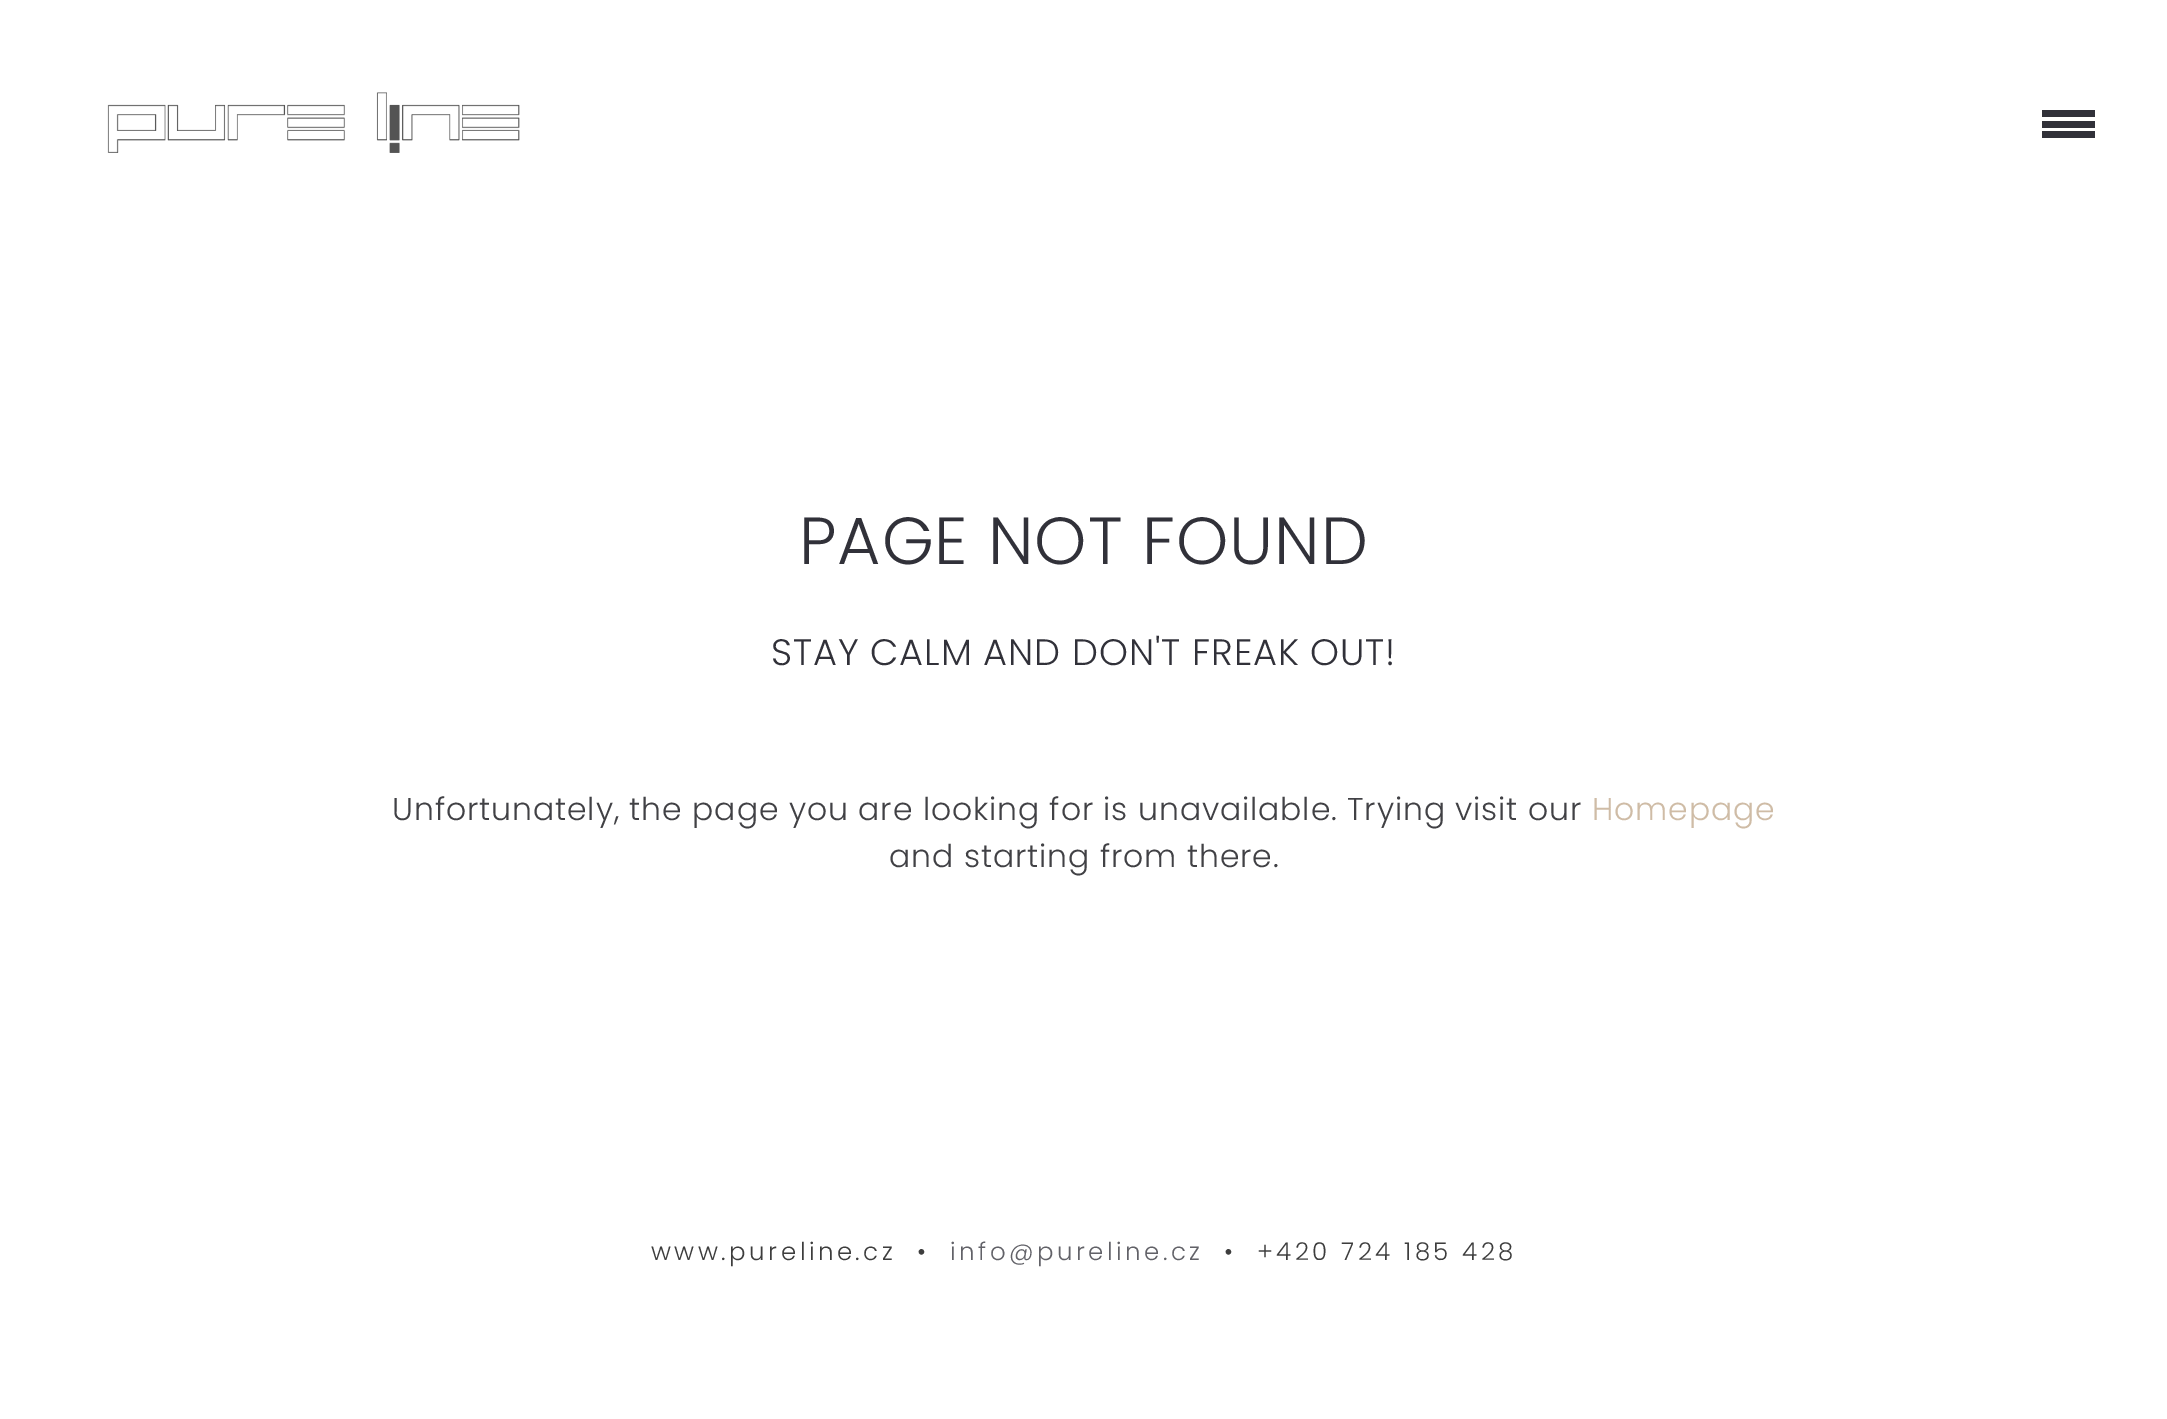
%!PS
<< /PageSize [2167 1419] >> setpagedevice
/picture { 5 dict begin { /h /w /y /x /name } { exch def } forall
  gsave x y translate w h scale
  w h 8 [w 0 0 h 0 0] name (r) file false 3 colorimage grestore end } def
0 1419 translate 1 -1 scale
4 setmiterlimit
1 setgray
0 0 2167 1419 rectfill
(img1.rgb) 107 92 413 61 picture
0.192 0.192 0.224 setrgbcolor
2042 110 53 7 rectfill
2042 121 53 7 rectfill
2042 131 53 7 rectfill
/Poppins-Light [66.5 0 0 -66.5 0 0] selectfont
799 564 moveto 0.88 0 (PAGE NOT FOUND) ashow
/Poppins-Light [36.75 0 0 -36.75 0 0] selectfont
771 665 moveto 0.88 0 (STAY CALM AND DON'T FREAK OUT!) ashow
/Poppins-Light [31.5 0 0 -31.5 0 0] selectfont
0.255 0.255 0.271 setrgbcolor
392 820 moveto 0.88 0 (Unfortunately, the page you are looking for is unavailable. Trying visit our) ashow
0.812 0.737 0.651 setrgbcolor
1592 820 moveto 0.88 0 (Homepage) ashow
0.255 0.255 0.271 setrgbcolor
889 867 moveto 0.88 0 (and starting from there.) ashow
/Poppins-Light [24.5 0 0 -24.5 0 0] selectfont
0.239 setgray
651 1260 moveto 3.5 0 (www.pureline.cz  •) ashow
0.384 0.384 0.408 setrgbcolor
950 1260 moveto 3.5 0 (info@pureline.cz) ashow
0.239 setgray
1224 1260 moveto 3.5 0 (•  +420 724 185 428) ashow
showpage
